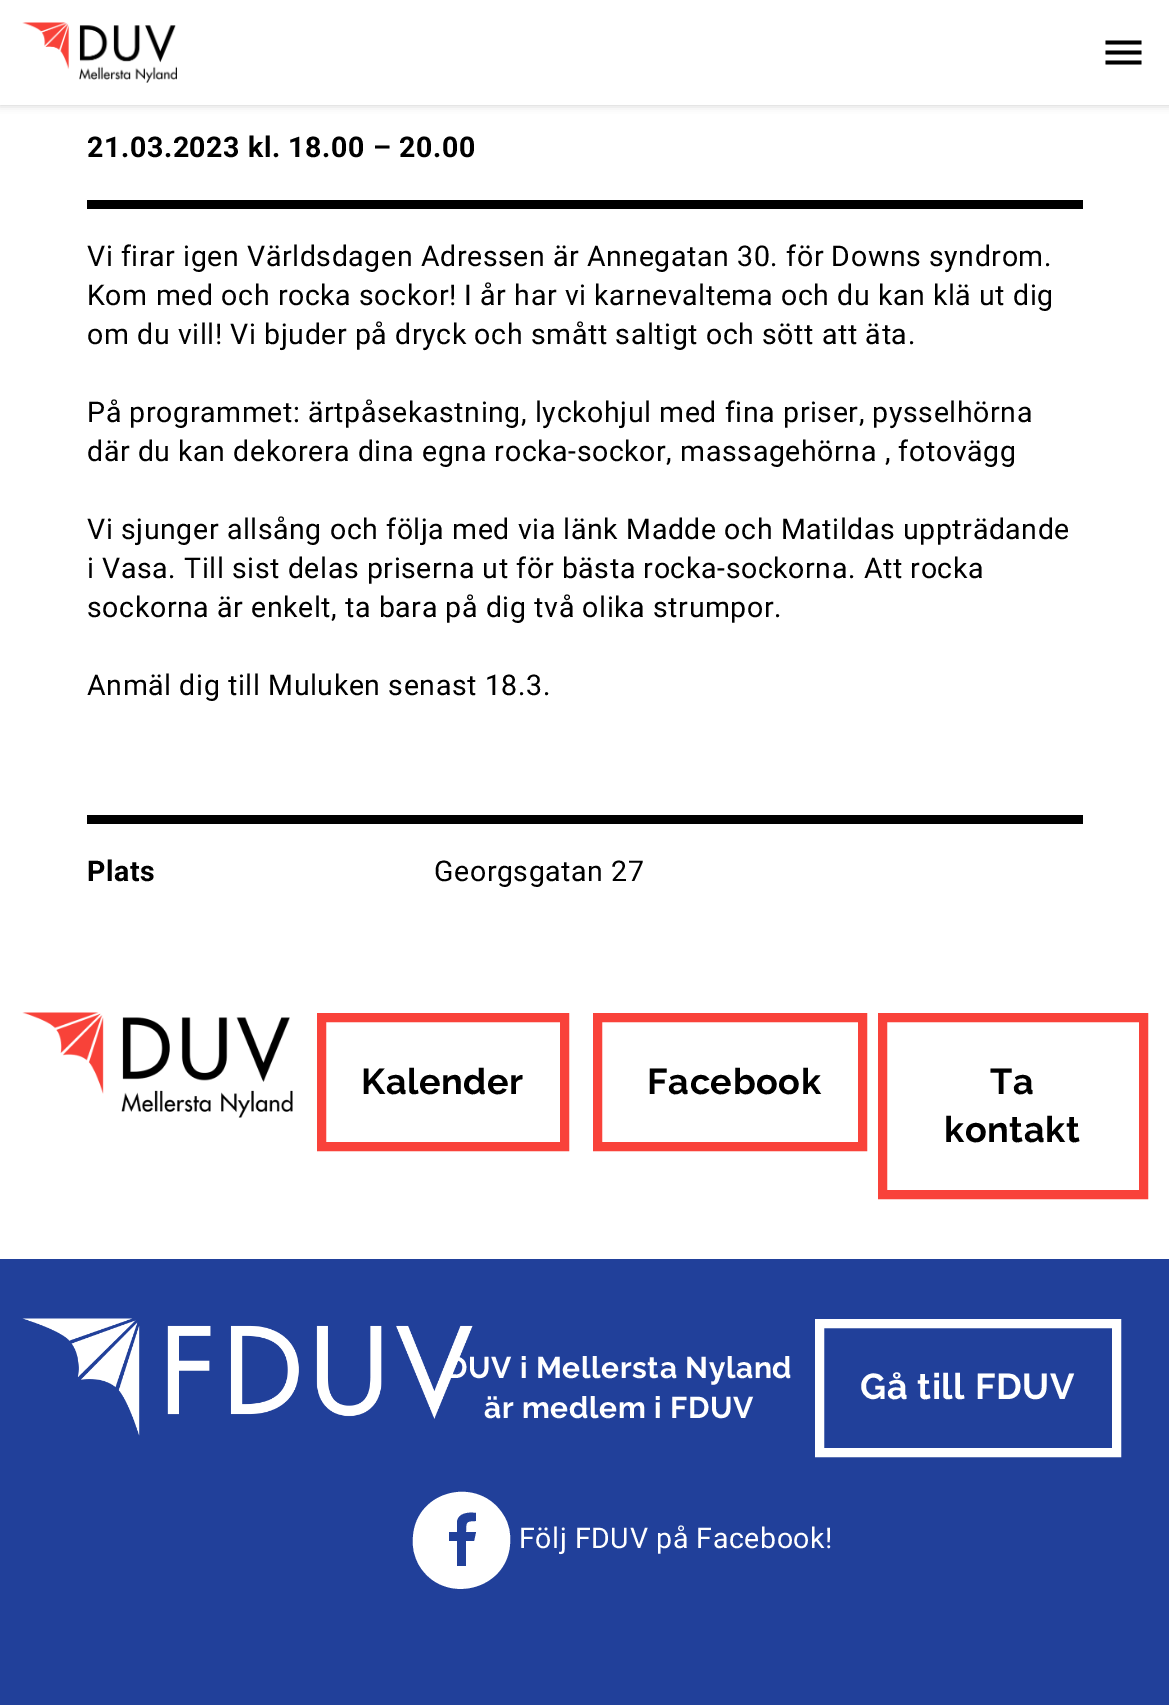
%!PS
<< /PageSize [1169 1705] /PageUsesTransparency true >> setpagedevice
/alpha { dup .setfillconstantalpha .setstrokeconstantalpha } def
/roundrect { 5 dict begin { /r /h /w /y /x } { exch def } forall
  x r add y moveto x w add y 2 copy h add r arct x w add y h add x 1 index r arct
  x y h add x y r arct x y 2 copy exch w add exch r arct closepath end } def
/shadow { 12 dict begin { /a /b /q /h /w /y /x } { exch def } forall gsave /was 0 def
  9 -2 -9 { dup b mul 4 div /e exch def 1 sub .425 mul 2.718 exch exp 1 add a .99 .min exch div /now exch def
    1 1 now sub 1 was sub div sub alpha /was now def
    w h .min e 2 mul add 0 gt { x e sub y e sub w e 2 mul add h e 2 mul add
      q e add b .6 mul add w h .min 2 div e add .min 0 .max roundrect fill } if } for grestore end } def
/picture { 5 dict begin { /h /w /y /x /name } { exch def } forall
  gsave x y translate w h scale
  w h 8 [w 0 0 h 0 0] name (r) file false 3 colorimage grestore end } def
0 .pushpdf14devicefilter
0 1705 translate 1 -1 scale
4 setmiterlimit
1 setgray
0 0 1169 1705 rectfill
0 setgray
0 0 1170 105 0 4 0.2 shadow
1 setgray
0 0 1169 105 rectfill
(img1.rgb) 22 22 155 61 picture
0 setgray
newpath 1105.5 40.5 moveto 1141.5 40.5 lineto 1141.5 44.5 lineto 1105.5 44.5 lineto closepath 1105.5 54.5 moveto 1105.5 50.5 lineto 1141.5 50.5 lineto 1141.5 54.5 lineto closepath 1105.5 64.5 moveto 1105.5 60.5 lineto 1141.5 60.5 lineto 1141.5 64.5 lineto closepath fill
/Roboto-Bold [28.5 0 0 -28.5 0 0] selectfont
87 157 moveto 0.6 0 (21.03.2023 kl. 18.00 – 20.00) ashow
87 200 996 9 rectfill
/Roboto-Regular [28.5 0 0 -28.5 0 0] selectfont
87 266 moveto 0.6 0 (Vi firar igen Världsdagen Adressen är Annegatan 30. för Downs syndrom.) ashow
87 305 moveto 0.6 0 (Kom med och rocka sockor! I år har vi karnevaltema och du kan klä ut dig) ashow
87 344 moveto 0.6 0 (om du vill! Vi bjuder på dryck och smått saltigt och sött att äta.) ashow
87 422 moveto 0.6 0 (På programmet: ärtpåsekastning, lyckohjul med fina priser, pysselhörna) ashow
87 461 moveto 0.6 0 (där du kan dekorera dina egna rocka-sockor, massagehörna , fotovägg) ashow
87 539 moveto 0.6 0 (Vi sjunger allsång och följa med via länk Madde och Matildas uppträdande) ashow
87 578 moveto 0.6 0 (i Vasa. Till sist delas priserna ut för bästa rocka-sockorna. Att rocka) ashow
87 617 moveto 0.6 0 (sockorna är enkelt, ta bara på dig två olika strumpor.) ashow
87 695 moveto 0.6 0 (Anmäl dig till Muluken senast 18.3.) ashow
87 815 996 9 rectfill
/Roboto-Bold [28.5 0 0 -28.5 0 0] selectfont
87 881 moveto 0.6 0 (Plats) ashow
/Roboto-Regular [28.5 0 0 -28.5 0 0] selectfont
434 881 moveto 0.6 0 (Georgsgatan 27) ashow
(img2.rgb) 22 1012 271 106 picture
0.976 0.259 0.227 setrgbcolor
9 setlinewidth
321.5 1017.5 243 129 rectstroke
/Raleway-Bold [36 0 0 -36 0 0] selectfont
0 setgray
361 1094 moveto 0.6 0 (Kalender) ashow
0.976 0.259 0.227 setrgbcolor
597.5 1017.5 265 129 rectstroke
0 setgray
647 1094 moveto 0.6 0 (Facebook) ashow
0.976 0.259 0.227 setrgbcolor
882.5 1017.5 261 177 rectstroke
0 setgray
990 1094 moveto 0.6 0 (Ta) ashow
944 1142 moveto 0.6 0 (kontakt) ashow
0.129 0.251 0.604 setrgbcolor
0 1259 1169 446 rectfill
(img3.rgb) 22 1318 451 118 picture
/Raleway-Bold [30 0 0 -30 0 0] selectfont
1 setgray
446 1378 moveto 0.6 0 (DUV i Mellersta Nyland) ashow
484 1418 moveto 0.6 0 (är medlem i FDUV) ashow
newpath 504 1516 moveto 509 1524 511 1534 510 1544 curveto 507 1591 443 1606 419 1565 curveto 414 1556 412 1547 413 1537 curveto 416 1489 480 1475 504 1516 curveto closepath fill
0.129 0.251 0.604 setrgbcolor
newpath 476 1513 moveto 476 1521 lineto 466 1521 466 1522 466 1532 curveto 476 1532 lineto 474 1541 lineto 466 1541 lineto 466 1566 lineto 457 1566 lineto 457 1541 lineto 449 1541 lineto 449 1532 lineto 457 1532 lineto 457 1522 lineto 458 1513 468 1512 476 1513 curveto closepath fill
/Roboto-Regular [28.5 0 0 -28.5 0 0] selectfont
1 setgray
519 1548 moveto 0.6 0 (Följ FDUV på Facebook!) ashow
819.5 1323.5 297 129 rectstroke
/Raleway-Bold [36 0 0 -36 0 0] selectfont
860 1399 moveto 0.6 0 (Gå till FDUV) ashow
.poppdf14devicefilter showpage
